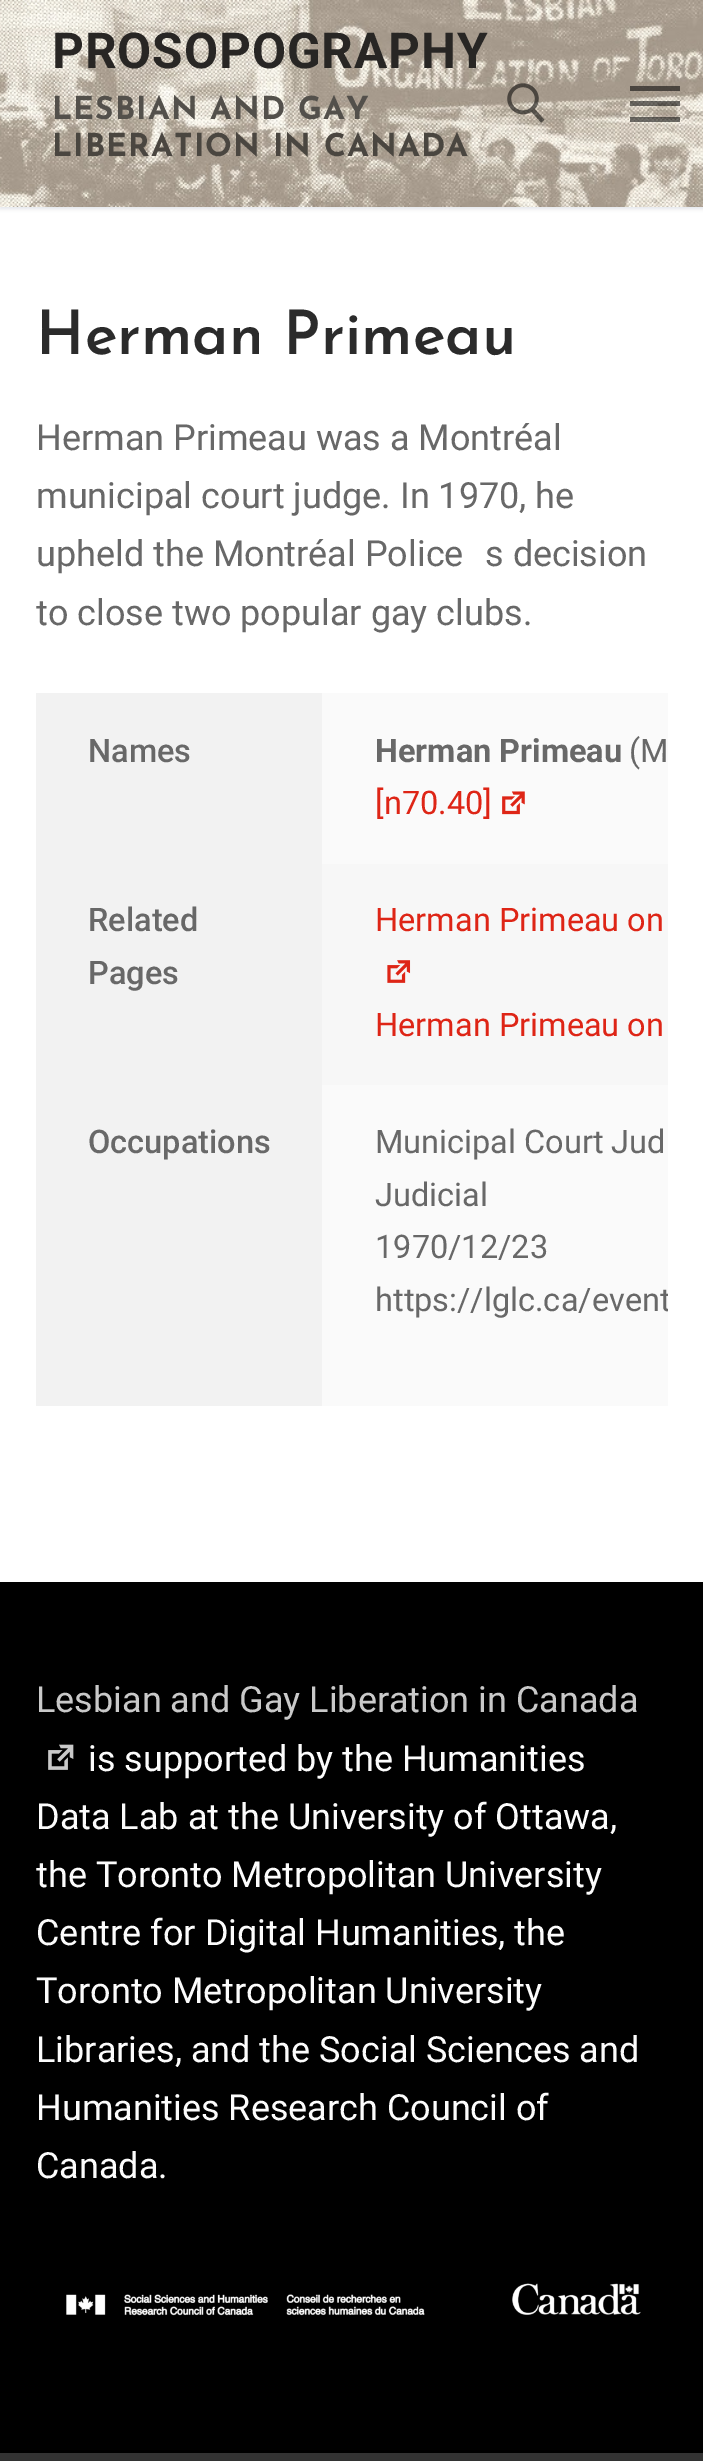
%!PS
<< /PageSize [703 2461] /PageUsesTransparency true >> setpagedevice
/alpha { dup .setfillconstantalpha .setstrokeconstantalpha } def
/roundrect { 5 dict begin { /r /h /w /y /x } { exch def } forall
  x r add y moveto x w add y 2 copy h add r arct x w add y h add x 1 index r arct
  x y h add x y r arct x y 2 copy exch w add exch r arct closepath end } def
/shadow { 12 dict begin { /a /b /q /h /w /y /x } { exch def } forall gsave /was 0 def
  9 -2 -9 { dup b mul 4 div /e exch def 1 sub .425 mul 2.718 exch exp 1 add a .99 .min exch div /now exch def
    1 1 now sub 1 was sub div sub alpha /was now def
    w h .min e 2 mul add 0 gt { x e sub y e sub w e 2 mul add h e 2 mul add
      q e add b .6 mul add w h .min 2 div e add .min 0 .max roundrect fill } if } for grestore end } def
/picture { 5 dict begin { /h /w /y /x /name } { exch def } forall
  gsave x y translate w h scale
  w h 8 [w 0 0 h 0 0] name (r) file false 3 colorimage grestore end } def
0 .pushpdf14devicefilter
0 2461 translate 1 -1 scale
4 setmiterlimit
1 setgray
0 0 703 2461 rectfill
0.882 0.898 0.918 setrgbcolor
0 2 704 207 0 2 1 shadow
(img1.rgb) 0 0 703 207 picture
/Roboto-Bold [49.5 0 0 -49.5 0 0] selectfont
0.157 0.149 0.141 setrgbcolor
52 68 moveto 0.9 0 (PROSOPOGRAPHY) ashow
/JosefinSans-Bold [31.5 0 0 -31.5 0 0] selectfont
0.325 0.314 0.294 setrgbcolor
52 119 moveto 1.1 0 (LESBIAN AND GAY) ashow
0.29 0.275 0.251 setrgbcolor
52 156 moveto 1.1 0 (LIBERATION IN CANADA) ashow
(img2.rgb) 507 83 38 40 picture
0.55 alpha
0 setgray
630 101 50 5 rectfill
630 86 50 5 rectfill
630 117 50 5 rectfill
/JosefinSans-SemiBold [61.25 0 0 -61.25 0 0] selectfont
1 alpha
0.169 setgray
36 354 moveto (Herman Primeau) show
/Roboto-Regular [36 0 0 -36 0 0] selectfont
0.408 setgray
36 450 moveto (Herman Primeau was a Montréal) show
36 508 moveto (municipal court judge. In 1970, he) show
36 566 moveto (upheld the Montréal Police) show
485 566 moveto (s decision) show
36 625 moveto (to close two popular gay clubs.) show
0.949 setgray
36 693 286 713 rectfill
/Roboto-Medium [32.5 0 0 -32.5 0 0] selectfont
0.408 setgray
88 762 moveto (Names) show
0.98 setgray
322 693 346 171 rectfill
/Roboto-Bold [32.5 0 0 -32.5 0 0] selectfont
0.408 setgray
375 762 moveto (Herman Primeau) show
/Roboto-Regular [32.5 0 0 -32.5 0 0] selectfont
629 762 moveto (\(M) show
0.871 0.145 0.086 setrgbcolor
375 814 moveto ([n70.40]) show
(img3.rgb) 502 791 23 24 picture
/Roboto-Medium [32.5 0 0 -32.5 0 0] selectfont
0.408 setgray
88 931 moveto (Related) show
88 984 moveto (Pages) show
0.969 setgray
322 864 346 221 rectfill
/Roboto-Regular [32.5 0 0 -32.5 0 0] selectfont
0.871 0.145 0.086 setrgbcolor
375 931 moveto (Herman Primeau on) show
(img4.rgb) 387 960 24 23 picture
375 1036 moveto (Herman Primeau on) show
/Roboto-Medium [32.5 0 0 -32.5 0 0] selectfont
0.408 setgray
88 1153 moveto (Occupations) show
0.98 setgray
322 1085 346 321 rectfill
/Roboto-Regular [32.5 0 0 -32.5 0 0] selectfont
0.408 setgray
375 1153 moveto (Municipal Court Jud) show
375 1206 moveto (Judicial) show
375 1258 moveto (1970/12/23) show
gsave
36 693 632 794 rectclip
375 1311 moveto (https://lglc.ca/event) show
grestore
0 setgray
0 1582 703 871 rectfill
/Roboto-Regular [36 0 0 -36 0 0] selectfont
0.788 setgray
36 1712 moveto (Lesbian and Gay Liberation in Canada) show
(img5.rgb) 48 1744 26 26 picture
0.988 setgray
88 1771 moveto (is supported by the Humanities) show
36 1829 moveto (Data Lab at the University of Ottawa,) show
36 1887 moveto (the Toronto Metropolitan University) show
36 1945 moveto (Centre for Digital Humanities, the) show
36 2003 moveto (Toronto Metropolitan University) show
36 2062 moveto (Libraries, and the Social Sciences and) show
36 2120 moveto (Humanities Research Council of) show
36 2178 moveto (Canada.) show
(img6.rgb) 66 2283 575 33 picture
0.2 setgray
0 2453 703 8 rectfill
.poppdf14devicefilter showpage
